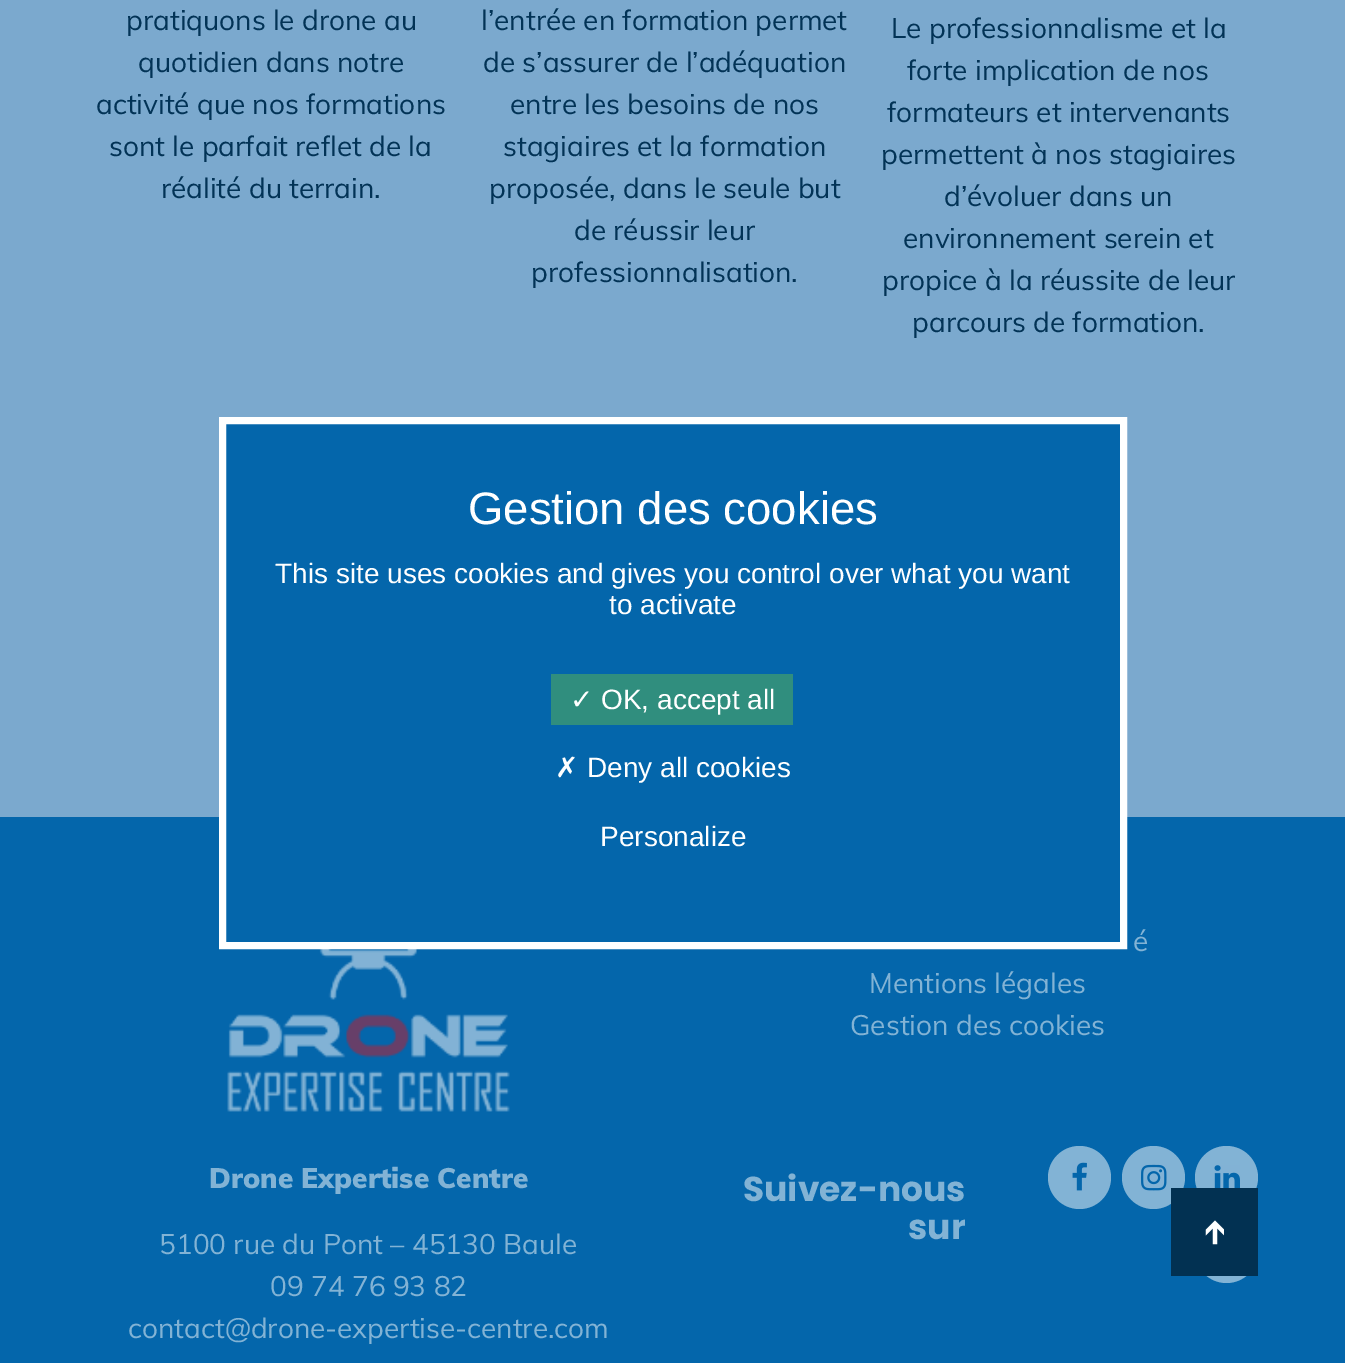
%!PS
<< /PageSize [1345 1363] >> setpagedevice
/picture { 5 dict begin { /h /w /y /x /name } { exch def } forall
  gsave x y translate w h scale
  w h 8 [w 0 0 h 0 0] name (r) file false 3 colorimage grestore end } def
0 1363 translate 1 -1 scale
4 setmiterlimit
0.016 0.4 0.671 setrgbcolor
0 0 1345 1363 rectfill
0.482 0.663 0.808 setrgbcolor
0 0 1345 817 rectfill
/Muli-Regular [28 0 0 -28 0 0] selectfont
0.008 0.2 0.337 setrgbcolor
126 30 moveto (pratiquons le drone au) show
138 72 moveto (quotidien dans notre) show
96 114 moveto (activité que nos formations) show
109 156 moveto (sont le parfait reflet de la) show
161 198 moveto (réalité du terrain.) show
481 30 moveto (l’entrée en formation permet) show
483 72 moveto (de s’assurer de l’adéquation) show
510 114 moveto (entre les besoins de nos) show
503 156 moveto (stagiaires et la formation) show
489 198 moveto (proposée, dans le seule but) show
574 240 moveto (de réussir leur) show
531 282 moveto (professionnalisation.) show
891 38 moveto (Le professionnalisme et la) show
907 80 moveto (forte implication de nos) show
887 122 moveto (formateurs et intervenants) show
881 164 moveto (permettent à nos stagiaires) show
944 206 moveto (d’évoluer dans un) show
903 248 moveto (environnement serein et) show
882 290 moveto (propice à la réussite de leur) show
912 332 moveto (parcours de formation.) show
(img1.rgb) 227 949 283 163 picture
/Muli-Black [28 0 0 -28 0 0] selectfont
0.51 0.702 0.835 setrgbcolor
209 1188 moveto (Drone Expertise Centre) show
/Muli-Regular [28 0 0 -28 0 0] selectfont
159 1254 moveto (5100 rue du Pont – 45130 Baule) show
270 1296 moveto (09 74 76 93 82) show
128 1338 moveto (contact@drone-expertise-centre.com) show
1133 951 moveto (é) show
869 993 moveto (Mentions légales) show
850 1035 moveto (Gestion des cookies) show
/Poppins-Bold [34.5 0 0 -34.5 0 0] selectfont
743 1201 moveto (Suivez-nous) show
908 1239 moveto (sur) show
newpath 1079.5 1177.5 31.5 0 360 arc closepath fill
(img2.rgb) 1072 1162 15 29 picture
newpath 1153.5 1177.5 31.5 0 360 arc closepath fill
(img3.rgb) 1141 1164 26 27 picture
newpath 1226.5 1177.5 31.5 0 360 arc closepath fill
(img4.rgb) 1214 1165 26 23 picture
newpath 1226.5 1251.5 31.5 0 360 arc closepath fill
0.016 0.4 0.671 setrgbcolor
226 424 894 393 rectfill
1 setgray
7 setlinewidth
222.5 420.5 901 525 rectstroke
/LiberationSans-Regular [45.5 0 0 -45.5 0 0] selectfont
468 524 moveto (Gestion des cookies) show
/LiberationSans-Regular [28 0 0 -28 0 0] selectfont
275 583 moveto (This site uses cookies and gives you control over what you want) show
609 614 moveto (to activate) show
0.188 0.557 0.494 setrgbcolor
551 674 242 51 rectfill
/DejaVuSans-Regular [28 0 0 -28 0 0] selectfont
1 setgray
570 709 moveto (✓) show
/LiberationSans-Regular [28 0 0 -28 0 0] selectfont
601 709 moveto (OK, accept all) show
/DejaVuSans-Regular [28 0 0 -28 0 0] selectfont
555 777 moveto (✗) show
/LiberationSans-Regular [28 0 0 -28 0 0] selectfont
587 777 moveto (Deny all cookies) show
600 846 moveto (Personalize) show
0.008 0.192 0.322 setrgbcolor
1171 1188 87 88 rectfill
/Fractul-Medium [45.5 0 0 -45.5 0 0] selectfont
1 setgray
1200 1248 moveto (↑) show
showpage
